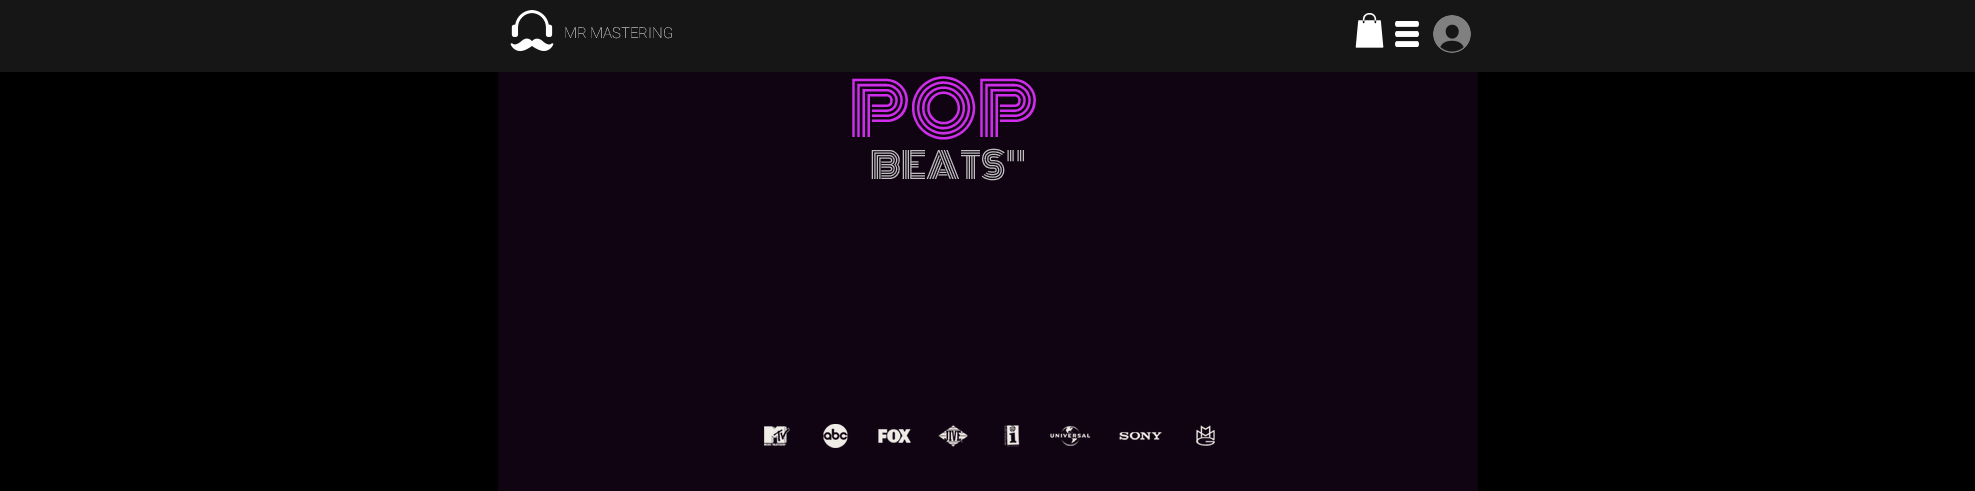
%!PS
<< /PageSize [1975 491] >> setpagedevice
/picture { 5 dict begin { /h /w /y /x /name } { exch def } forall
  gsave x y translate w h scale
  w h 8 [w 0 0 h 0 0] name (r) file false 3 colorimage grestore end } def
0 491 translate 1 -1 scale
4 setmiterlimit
0 setgray
0 0 1975 491 rectfill
0.086 setgray
0 0 1975 72 rectfill
(img1.rgb) 510 10 44 41 picture
/Roboto-Thin [15 0 0 -15 0 0] selectfont
1 setgray
564 38 moveto (MR MASTERING) show
(img2.rgb) 1355 13 29 35 picture
(img3.rgb) 1395 21 24 26 picture
(img4.rgb) 1433 15 38 38 picture
0.063 0.016 0.075 setrgbcolor
498 72 980 419 rectfill
/Monoton-Regular [72 0 0 -72 0 0] selectfont
0.808 0.18 0.918 setrgbcolor
849 137 moveto (POP) show
/Monoton-Regular [36 0 0 -36 0 0] selectfont
0.749 setgray
870 179 moveto (BEATS") show
(img5.rgb) 764 424 451 24 picture
showpage
